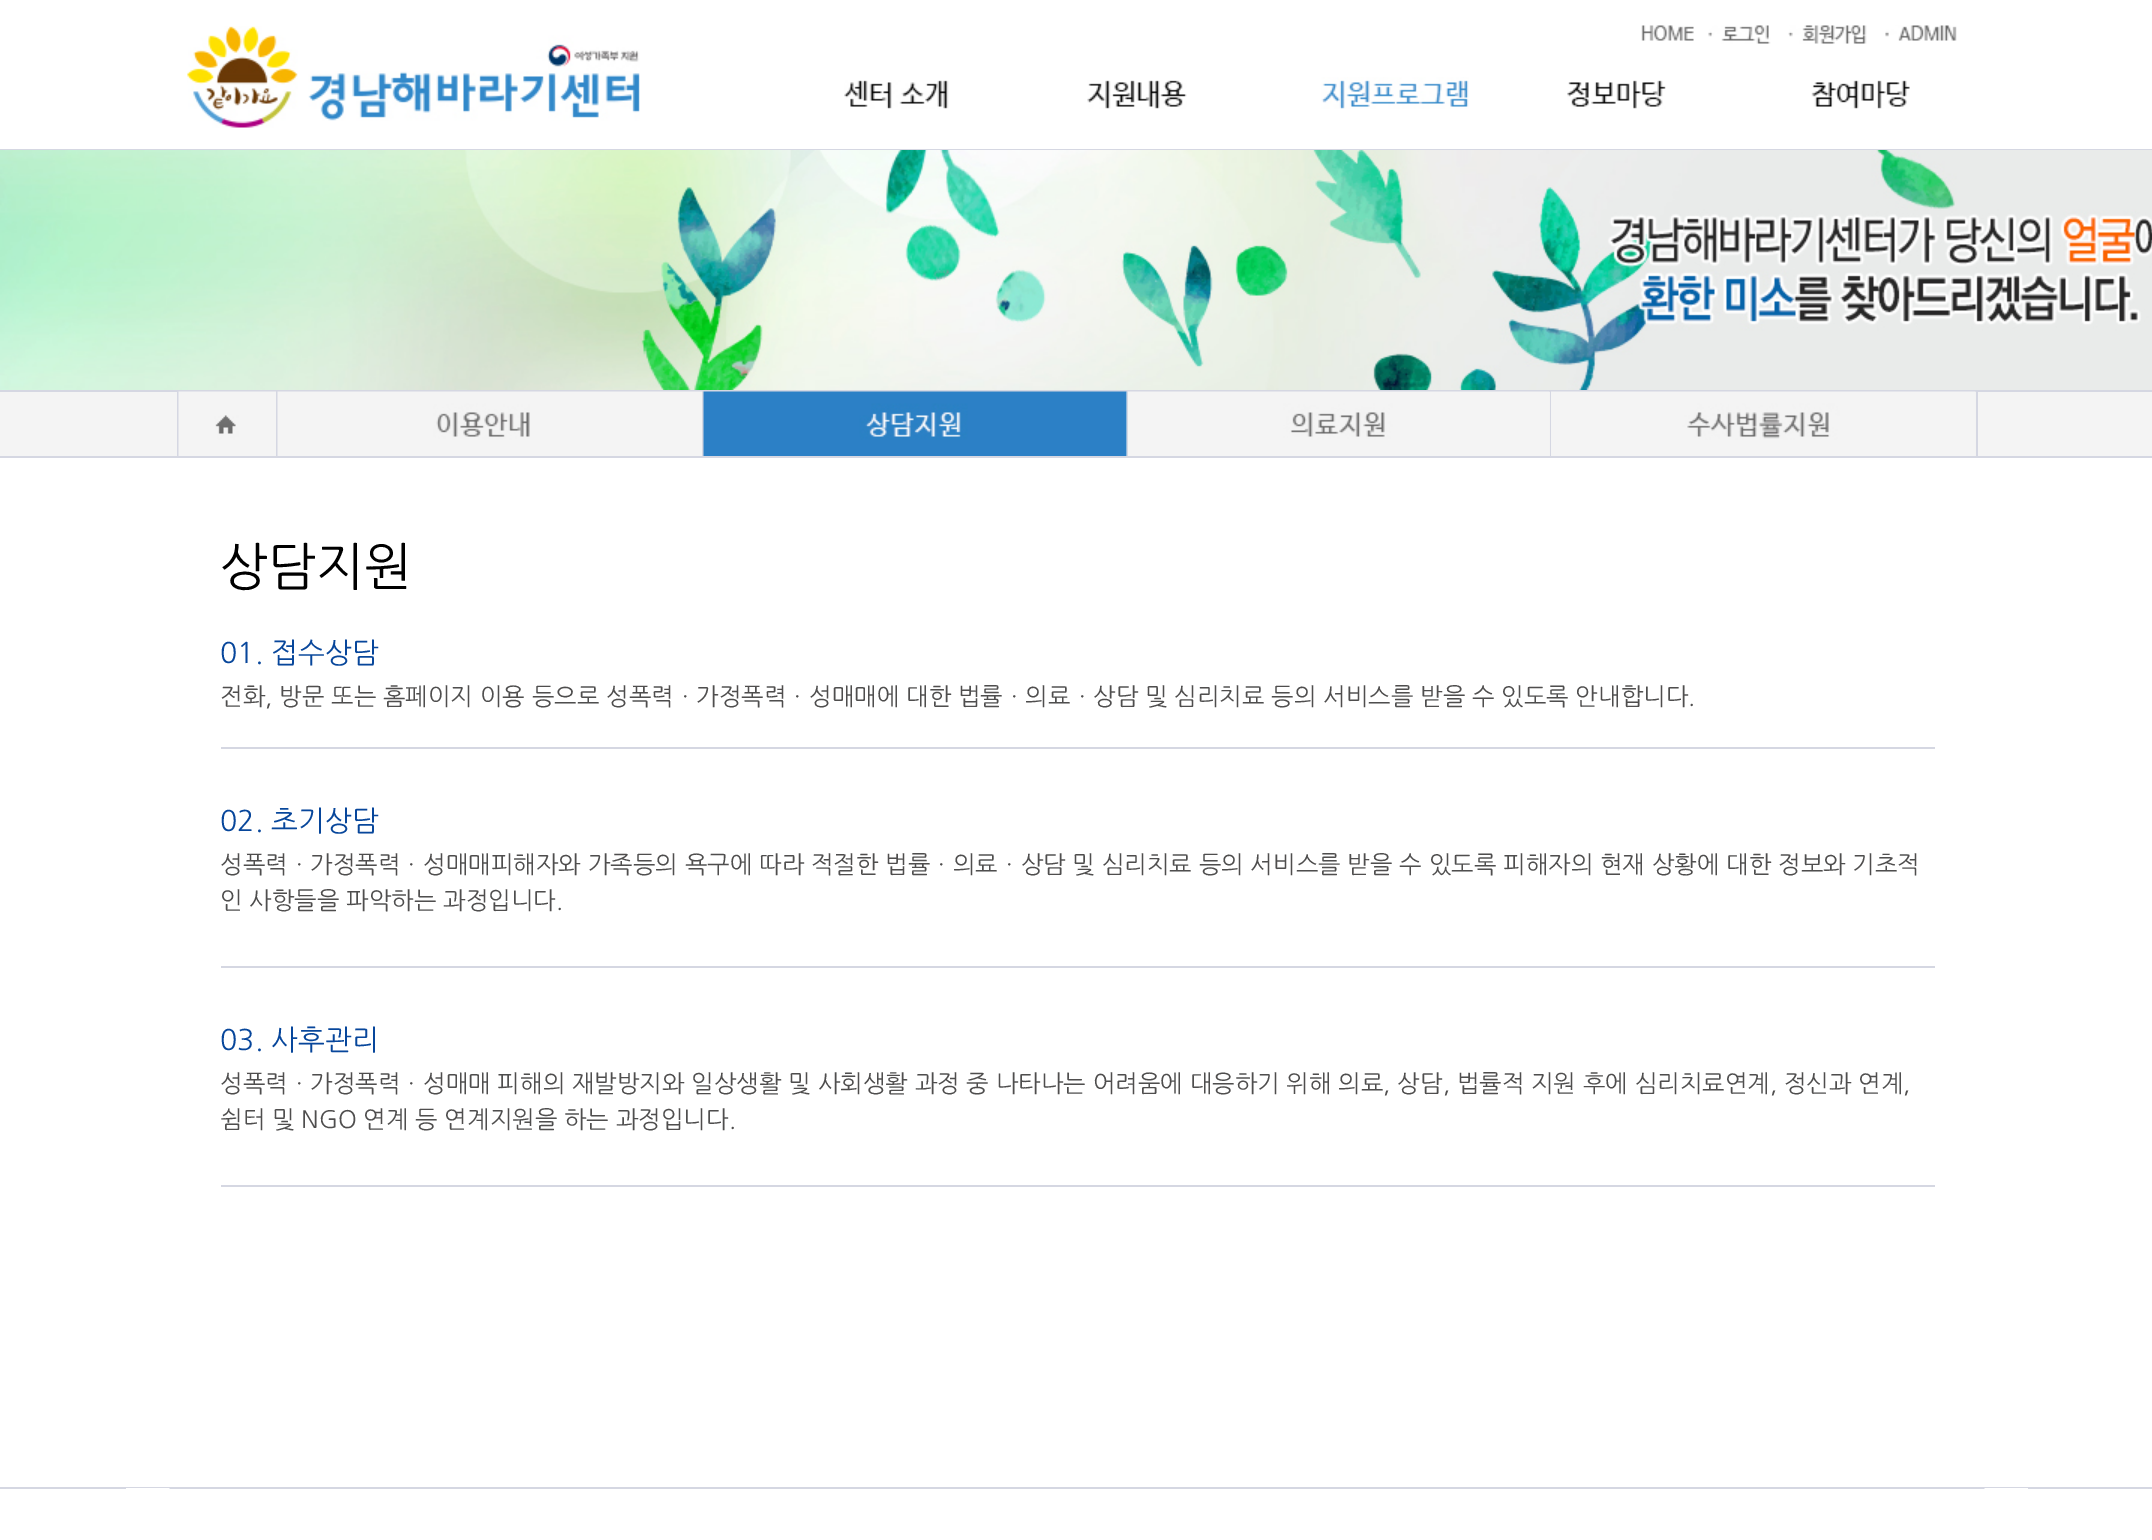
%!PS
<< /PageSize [2152 1540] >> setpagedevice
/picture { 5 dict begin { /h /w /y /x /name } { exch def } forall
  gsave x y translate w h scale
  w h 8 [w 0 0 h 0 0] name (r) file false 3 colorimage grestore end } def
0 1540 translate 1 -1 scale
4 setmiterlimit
1 setgray
0 0 2152 1540 rectfill
(img1.rgb) 187 26 453 102 picture
(img2.rgb) 1641 25 53 16 picture
(img3.rgb) 1708 25 63 19 picture
(img4.rgb) 1788 25 79 19 picture
(img5.rgb) 1885 25 72 16 picture
(img6.rgb) 844 80 105 29 picture
(img7.rgb) 1087 80 100 29 picture
(img8.rgb) 1321 77 148 32 picture
(img9.rgb) 1567 80 99 29 picture
(img10.rgb) 1811 80 99 29 picture
0.835 0.843 0.886 setrgbcolor
0 149 2152 1 rectfill
(img11.rgb) 0 150 2152 240 picture
0 390 2152 2 rectfill
0.957 setgray
0 392 2152 64 rectfill
0.835 0.843 0.886 setrgbcolor
177 392 2 64 rectfill
(img12.rgb) 178 391 98 65 picture
276 392 2 64 rectfill
(img13.rgb) 277 391 425 65 picture
702 392 2 64 rectfill
(img14.rgb) 703 391 424 65 picture
(img15.rgb) 1128 391 422 65 picture
(img16.rgb) 1551 391 425 65 picture
1127 392 1 64 rectfill
1550 392 1 64 rectfill
1976 392 2 64 rectfill
0 456 2152 2 rectfill
/NanumGothic-Regular [51 0 0 -51 0 0] selectfont
0 setgray
220 585 moveto (상담지원) show
/NanumGothic-Regular [28.5 0 0 -28.5 0 0] selectfont
0.027 0.275 0.608 setrgbcolor
220 663 moveto (01. 접수상담) show
/NanumGothic-Regular [24 0 0 -24 0 0] selectfont
0.31 0.306 0.306 setrgbcolor
220 705 moveto (전화, 방문 또는 홈페이지 이용 등으로 성폭력ㆍ가정폭력ㆍ성매매에 대한 법률ㆍ의료ㆍ상담 및 심리치료 등의 서비스를 받을 수 있도록 안내합니다.) show
0.835 0.843 0.886 setrgbcolor
221 747 1714 2 rectfill
/NanumGothic-Regular [28.5 0 0 -28.5 0 0] selectfont
0.027 0.275 0.608 setrgbcolor
220 831 moveto (02. 초기상담) show
/NanumGothic-Regular [24 0 0 -24 0 0] selectfont
0.31 0.306 0.306 setrgbcolor
220 873 moveto (성폭력ㆍ가정폭력ㆍ성매매피해자와 가족등의 욕구에 따라 적절한 법률ㆍ의료ㆍ상담 및 심리치료 등의 서비스를 받을 수 있도록 피해자의 현재 상황에 대한 정보와 기초적) show
220 909 moveto (인 사항들을 파악하는 과정입니다.) show
0.835 0.843 0.886 setrgbcolor
221 966 1714 2 rectfill
/NanumGothic-Regular [28.5 0 0 -28.5 0 0] selectfont
0.027 0.275 0.608 setrgbcolor
220 1050 moveto (03. 사후관리) show
/NanumGothic-Regular [24 0 0 -24 0 0] selectfont
0.31 0.306 0.306 setrgbcolor
220 1092 moveto (성폭력ㆍ가정폭력ㆍ성매매 피해의 재발방지와 일상생활 및 사회생활 과정 중 나타나는 어려움에 대응하기 위해 의료, 상담, 법률적 지원 후에 심리치료연계, 정신과 연계,) show
220 1128 moveto (쉼터 및 NGO 연계 등 연계지원을 하는 과정입니다.) show
0.835 0.843 0.886 setrgbcolor
221 1185 1714 2 rectfill
0 1487 2152 2 rectfill
(img17.rgb) 126 1488 44 1 picture
(img18.rgb) 1984 1488 44 1 picture
showpage
